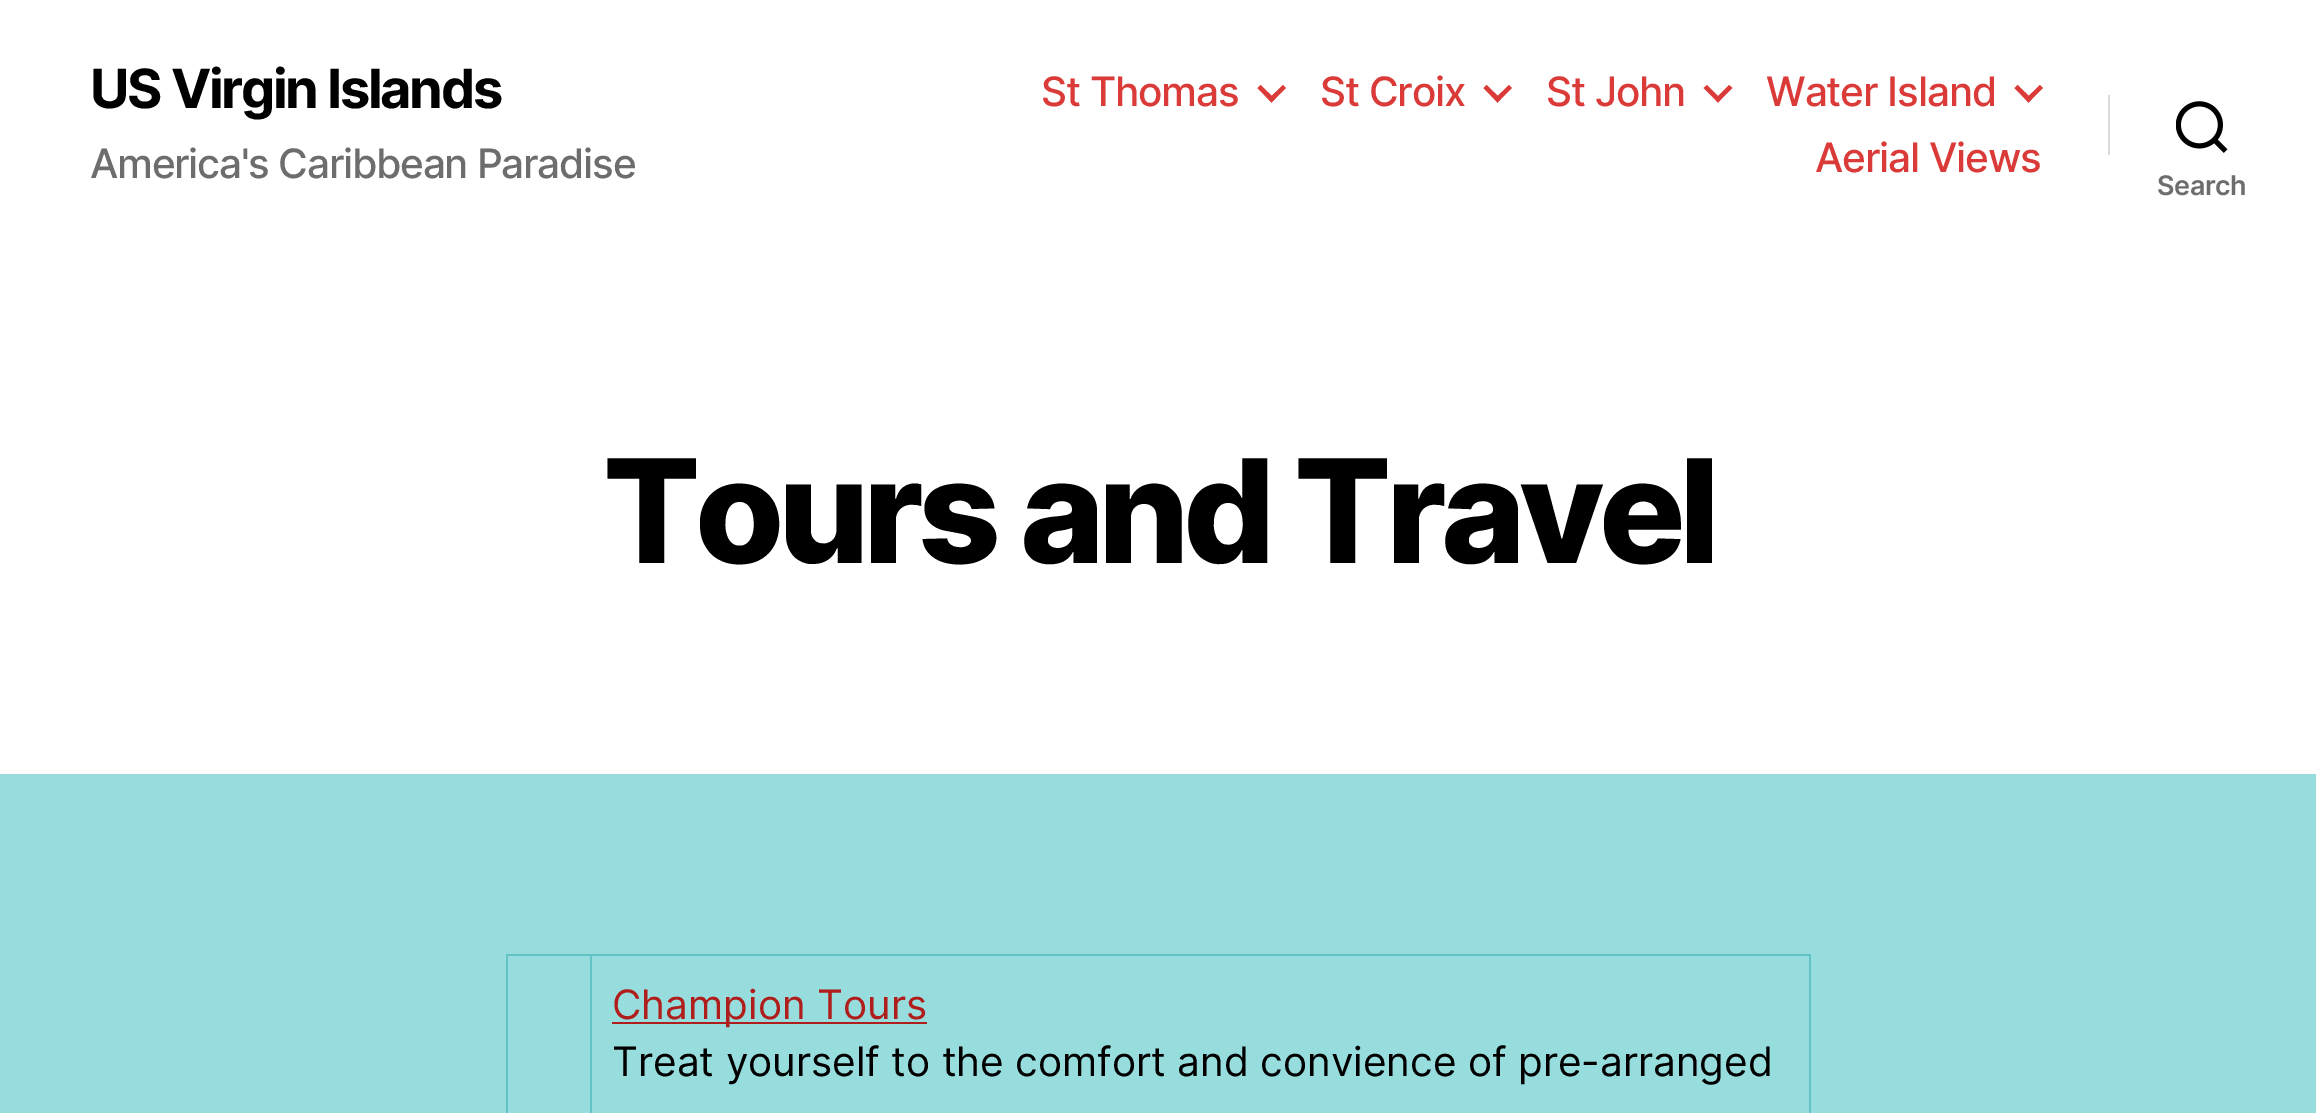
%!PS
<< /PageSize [2316 1113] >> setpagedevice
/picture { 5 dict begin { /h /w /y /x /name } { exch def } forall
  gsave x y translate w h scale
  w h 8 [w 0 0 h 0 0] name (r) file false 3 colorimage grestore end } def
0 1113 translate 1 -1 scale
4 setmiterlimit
0.596 0.867 0.871 setrgbcolor
0 0 2316 1113 rectfill
1 setgray
0 0 2316 774 rectfill
/Inter-Bold [54 0 0 -54 0 0] selectfont
0 setgray
90 108 moveto -2.25 0 (US Virgin Islands) ashow
/Inter-Medium [40.5 0 0 -40.5 0 0] selectfont
0.427 setgray
90 178 moveto -1.25 0 (America's Caribbean Paradise) ashow
0.855 0.231 0.22 setrgbcolor
1041 106 moveto -1.1 0 (St Thomas) ashow
newpath 1257.5 88 moveto 1260.5 85 lineto 1275 99 lineto 1271.5 102.5 lineto closepath fill
newpath 1268.5 99 moveto 1283 85 lineto 1286 88 lineto 1271.5 102.5 lineto closepath fill
1320 106 moveto -1.1 0 (St Croix) ashow
newpath 1483.5 88 moveto 1486.5 85 lineto 1501 99 lineto 1497.5 102.5 lineto closepath fill
newpath 1494.5 99 moveto 1509 85 lineto 1512 88 lineto 1497.5 102.5 lineto closepath fill
1546 106 moveto -1.1 0 (St John) ashow
newpath 1703.5 88 moveto 1707 85 lineto 1721 99 lineto 1718 102.5 lineto closepath fill
newpath 1715 99 moveto 1729 85 lineto 1732.5 88 lineto 1718 102.5 lineto closepath fill
1766 106 moveto -1.1 0 (Water Island) ashow
newpath 2014.5 88 moveto 2017.5 85 lineto 2032 99 lineto 2028.5 102.5 lineto closepath fill
newpath 2025.5 99 moveto 2040 85 lineto 2043 88 lineto 2028.5 102.5 lineto closepath fill
1815 172 moveto -1.1 0 (Aerial Views) ashow
0.859 setgray
2108 95 2 60 rectfill
(img1.rgb) 2176 101 52 52 picture
/Inter-SemiBold [27 0 0 -27 0 0] selectfont
0.427 setgray
2157 195 moveto -0.5 0 (Search) ashow
/Inter-ExtraBold [144 0 0 -144 0 0] selectfont
0 setgray
603 563 moveto -6 0 (Tours and Travel) ashow
0.388 0.761 0.769 setrgbcolor
506 954 1305 2 rectfill
1809 954 2 159 rectfill
506 954 2 159 rectfill
590 956 2 157 rectfill
0.69 0.118 0.106 setrgbcolor
612 1022 315 2 rectfill
/Inter-Regular [40.5 0 0 -40.5 0 0] selectfont
612 1019 moveto (Champion Tours) show
0 setgray
612 1076 moveto (Treat yourself to the comfort and convience of pre-arranged) show
showpage
